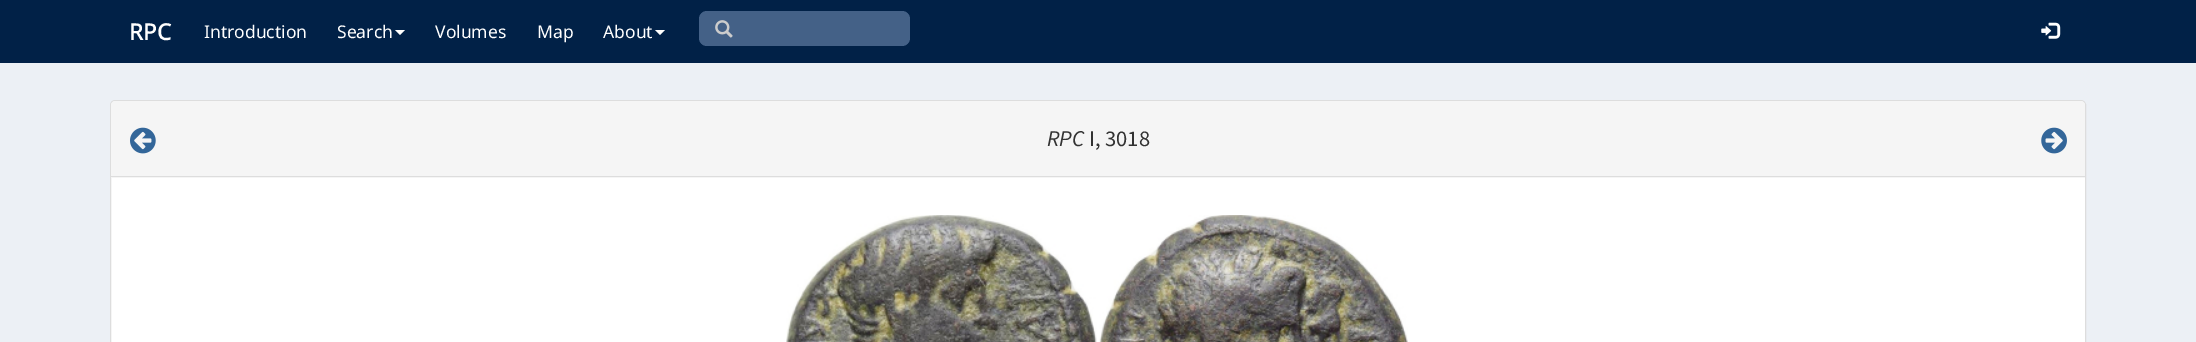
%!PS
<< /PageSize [2196 342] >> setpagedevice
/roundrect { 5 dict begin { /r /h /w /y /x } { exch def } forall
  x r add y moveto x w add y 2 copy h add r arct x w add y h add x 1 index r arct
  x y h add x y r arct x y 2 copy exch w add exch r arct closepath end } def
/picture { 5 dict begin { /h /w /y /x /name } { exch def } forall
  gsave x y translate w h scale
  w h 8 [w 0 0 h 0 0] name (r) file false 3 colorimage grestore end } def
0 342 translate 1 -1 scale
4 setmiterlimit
0.925 0.941 0.961 setrgbcolor
0 0 2196 342 rectfill
0.004 0.129 0.278 setrgbcolor
0 0 2196 63 rectfill
/NotoSans-Bold [22.5 0 0 -22.5 0 0] selectfont
1 setgray
129 40 moveto (RPC) show
/NotoSans-Regular [17.5 0 0 -17.5 0 0] selectfont
204 38 moveto (Introduction) show
337 38 moveto (Search) show
newpath 395 30 moveto 405 30 lineto 400 35 lineto closepath fill
435 38 moveto (Volumes) show
537 38 moveto (Map) show
603 38 moveto (About) show
newpath 655 30 moveto 665 30 lineto 660 35 lineto closepath fill
0.267 0.38 0.529 setrgbcolor
699 11 211 35 8 roundrect fill
(img1.rgb) 715 20 18 18 picture
(img2.rgb) 2041 22 20 17 picture
1 setgray
110.5 100.5 1975 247 4.5 roundrect gsave fill grestore
0.867 setgray
stroke
0.961 setgray
newpath 115 101 moveto 2081 101 lineto 2083 101 2085 103 2085 105 curveto 2085 178 lineto 111 178 lineto 111 105 lineto 111 103 113 101 115 101 curveto closepath fill
0.867 setgray
111 176 1974 1 rectfill
(img3.rgb) 130 127 26 27 picture
/SourceSansPro-Italic [22.5 0 0 -22.5 0 0] selectfont
0.2 setgray
1047 146 moveto (RPC) show
/SourceSansPro-Regular [22.5 0 0 -22.5 0 0] selectfont
1089 146 moveto (I, 3018) show
(img4.rgb) 2041 127 26 27 picture
(img5.rgb) 786 215 311 127 picture
(img6.rgb) 1099 215 309 127 picture
showpage
